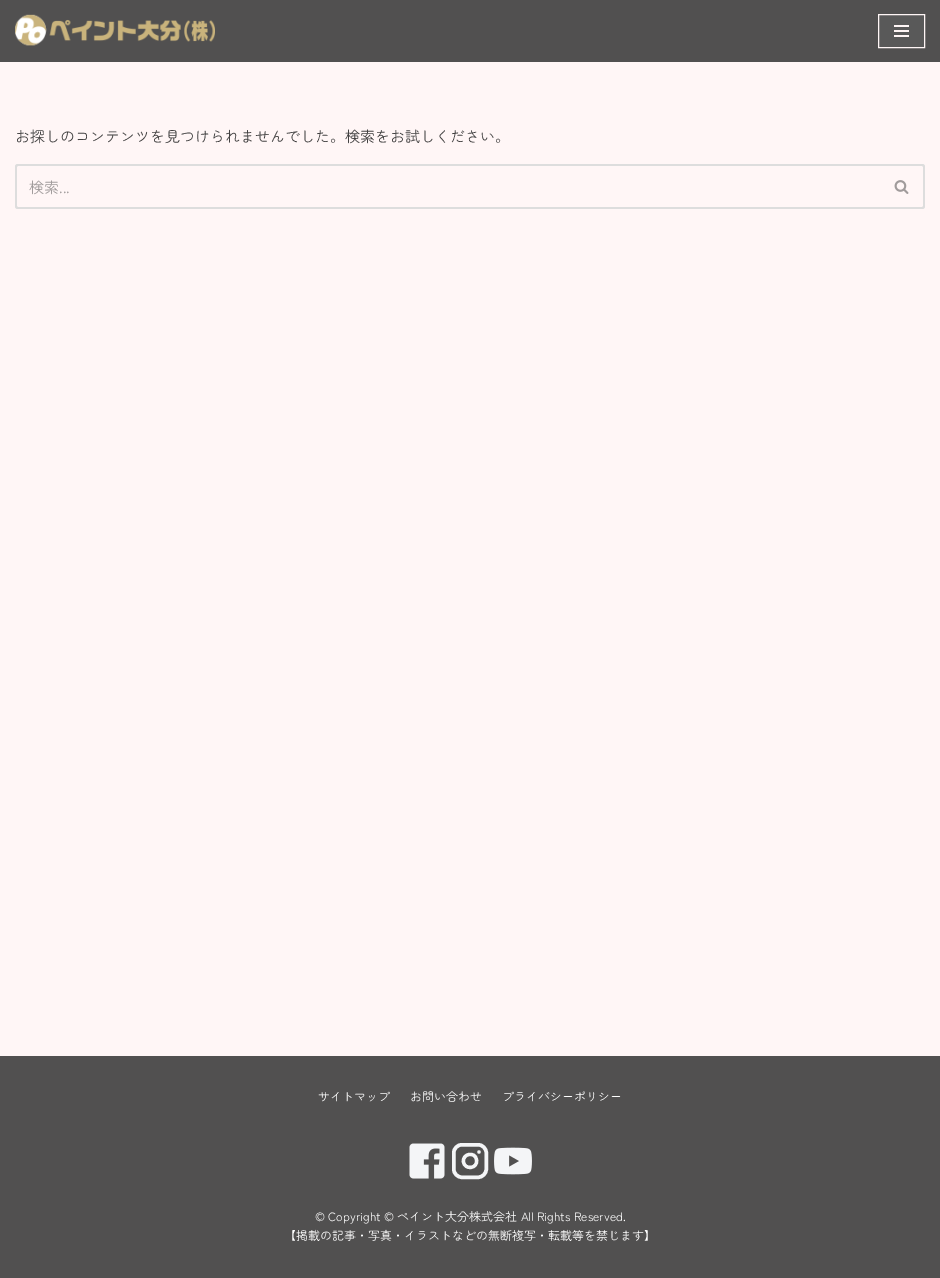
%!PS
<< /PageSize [940 1278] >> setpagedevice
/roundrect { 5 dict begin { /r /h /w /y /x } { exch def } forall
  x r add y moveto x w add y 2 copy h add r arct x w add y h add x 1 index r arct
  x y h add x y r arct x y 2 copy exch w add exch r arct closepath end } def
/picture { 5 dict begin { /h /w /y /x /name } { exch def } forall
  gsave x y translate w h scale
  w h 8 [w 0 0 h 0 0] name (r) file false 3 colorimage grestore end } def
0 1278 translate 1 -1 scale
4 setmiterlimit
1 0.965 0.965 setrgbcolor
0 0 940 1278 rectfill
0.318 0.314 0.314 setrgbcolor
0 0 940 62 rectfill
(img1.rgb) 15 14 200 32 picture
0.349 setgray
newpath 878.5 14.5 moveto 924.5 14.5 lineto 924.5 47.5 lineto 878.5 47.5 lineto closepath gsave fill grestore
1 0.965 0.965 setrgbcolor
stroke
894 25 15 2 rectfill
894 30 15 2 rectfill
894 35 15 2 rectfill
/ZenMaruGothic-Regular [15 0 0 -15 0 0] selectfont
0.259 0.255 0.255 setrgbcolor
15 142 moveto (お探しのコンテンツを見つけられませんでした。検索をお試しください。) show
0.867 setgray
newpath 18 164 moveto 880 164 lineto 880 209 lineto 18 209 lineto 16 209 15 208 15 206 curveto 15 167 lineto 15 165 16 164 18 164 curveto closepath 18 166 moveto 880 166 lineto 880 207 lineto 18 207 lineto 17 207 17 207 17 206 curveto 17 167 lineto 17 166 17 166 18 166 curveto closepath eofill
0.631 0.612 0.612 setrgbcolor
29 193 moveto (検索...) show
0.867 setgray
newpath 880 164 moveto 922 164 lineto 924 164 925 165 925 167 curveto 925 206 lineto 925 208 924 209 922 209 curveto 880 209 lineto closepath 880 166 moveto 922 166 lineto 923 166 923 166 923 167 curveto 923 206 lineto 923 207 923 207 922 207 curveto 880 207 lineto closepath eofill
(img2.rgb) 894 180 15 14 picture
0.318 0.314 0.314 setrgbcolor
0 1056 940 222 rectfill
/ZenMaruGothic-Regular [12 0 0 -12 0 0] selectfont
1 setgray
318 1101 moveto (サイトマップ) show
410 1101 moveto (お問い合わせ) show
502 1101 moveto (プライバシーポリシー) show
(img3.rgb) 409 1143 36 36 picture
0.957 0.961 0.969 setrgbcolor
3.5 setlinewidth
453.75 1144.75 32.5 32.5 8.25 roundrect stroke
3.3 setlinewidth
1 setlinecap
1 setlinejoin
newpath 476.5 1160 moveto 478 1168.5 465 1170.5 463.5 1162 curveto 462 1153.5 475.5 1151 476.5 1160 curveto closepath 479 1152 moveto 479 1152 lineto stroke
(img4.rgb) 494 1147 38 28 picture
1 setgray
315 1221 moveto (© Copyright © ペイント大分株式会社 All Rights Reserved.) show
284 1240 moveto (【掲載の記事・写真・イラストなどの無断複写・転載等を禁じます】) show
showpage
